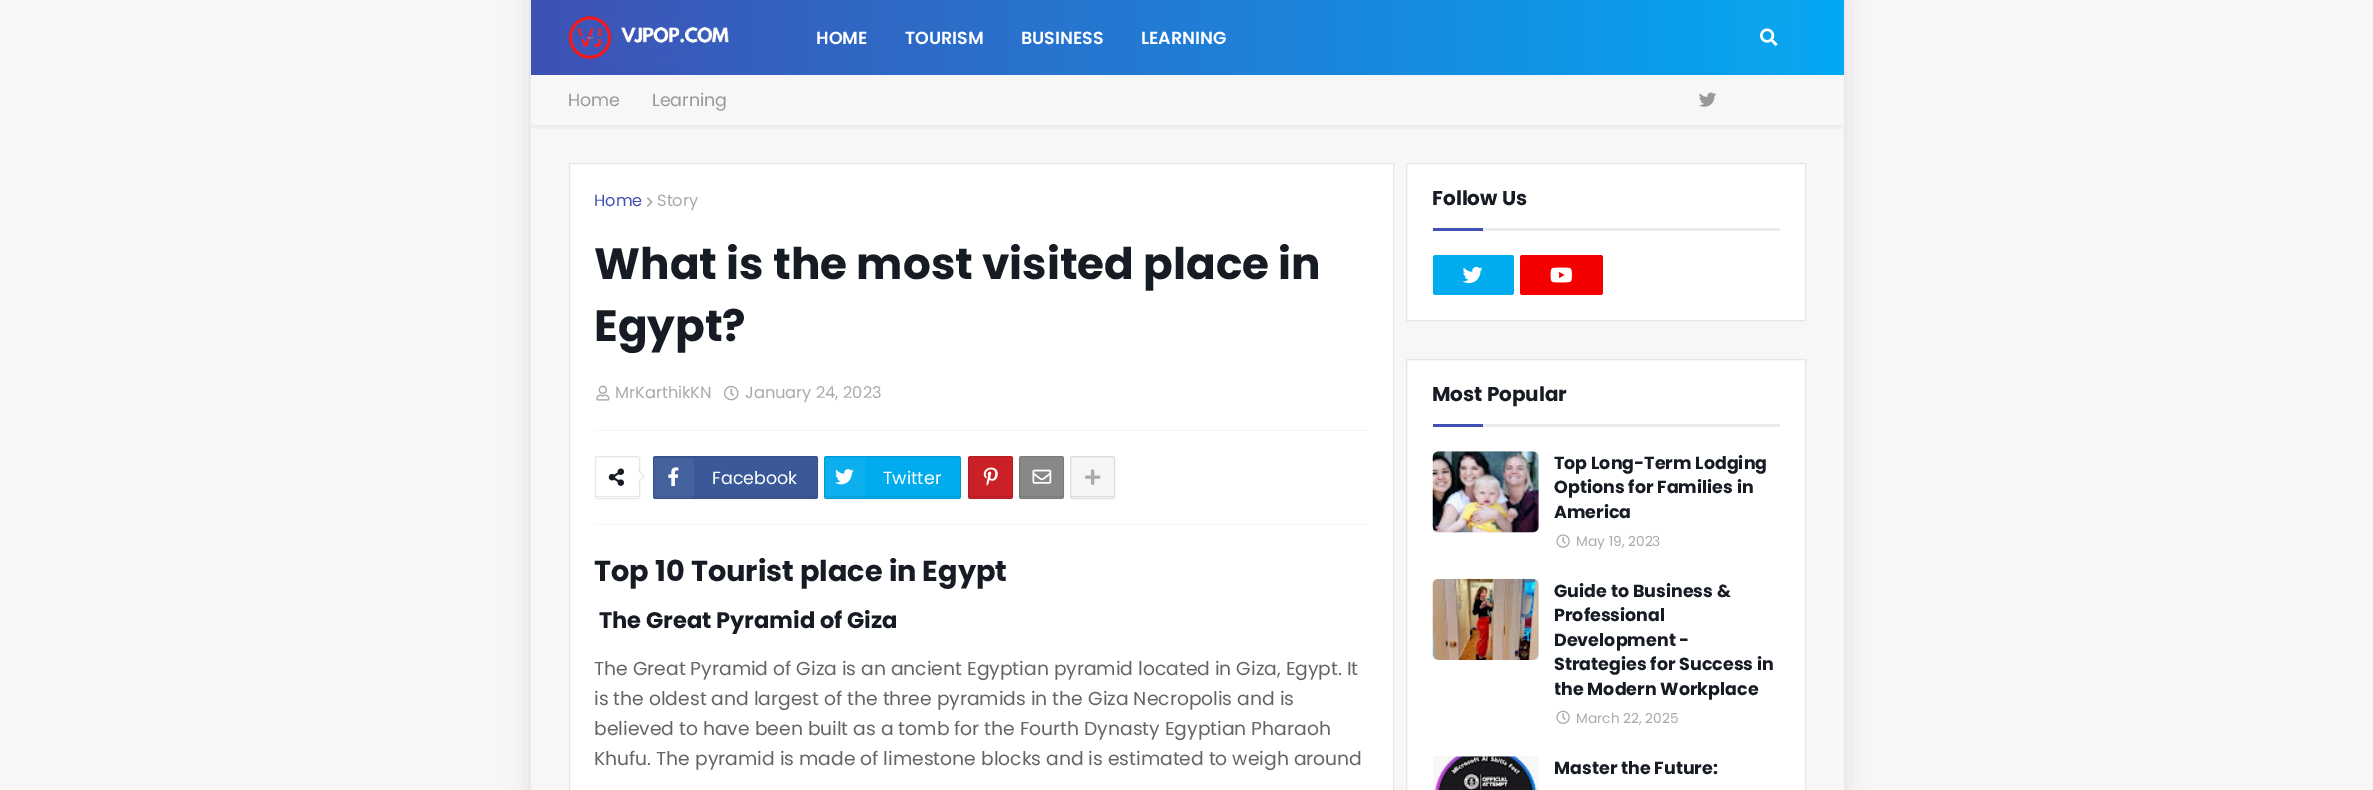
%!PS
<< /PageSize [2373 790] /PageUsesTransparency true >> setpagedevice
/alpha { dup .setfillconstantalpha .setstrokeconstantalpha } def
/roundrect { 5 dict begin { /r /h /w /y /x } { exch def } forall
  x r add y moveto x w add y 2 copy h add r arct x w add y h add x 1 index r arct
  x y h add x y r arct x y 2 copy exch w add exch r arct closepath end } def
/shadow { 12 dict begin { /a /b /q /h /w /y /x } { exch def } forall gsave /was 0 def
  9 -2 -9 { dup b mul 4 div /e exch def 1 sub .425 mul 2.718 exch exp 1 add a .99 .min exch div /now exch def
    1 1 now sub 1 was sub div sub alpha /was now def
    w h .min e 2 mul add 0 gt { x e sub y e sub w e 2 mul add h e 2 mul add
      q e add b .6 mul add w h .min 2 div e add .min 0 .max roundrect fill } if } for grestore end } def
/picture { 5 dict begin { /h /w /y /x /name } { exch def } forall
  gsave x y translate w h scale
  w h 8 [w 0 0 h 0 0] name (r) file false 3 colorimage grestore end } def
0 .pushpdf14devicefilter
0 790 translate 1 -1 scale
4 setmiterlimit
0.969 setgray
0 0 2373 790 rectfill
0 setgray
531 0 1313 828 0 12.5 0.1 shadow
0.969 setgray
531 75 1313 715 rectfill
gsave newpath 531 0 moveto 1844 0 lineto 1844 75 lineto 531 75 lineto closepath clip newpath
<< /ShadingType 2 /ColorSpace /DeviceRGB /Coords [531 38 1844 37] /Extend [true true] /Function << /FunctionType 2 /Domain [0 1] /C0 [0.247 0.318 0.71] /C1 [0.012 0.663 0.957] /N 1 >> >> shfill grestore
(img1.rgb) 568 16 161 43 picture
/Poppins-SemiBold [17.5 0 0 -17.5 0 0] selectfont
1 setgray
816 44 moveto (HOME) show
905 44 moveto (TOURISM) show
1021 44 moveto (BUSINESS) show
1141 44 moveto (LEARNING) show
gsave
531 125 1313 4 rectclip
0 setgray
531 78 1313 50 0 2.5 0.05 shadow
grestore
0.03 alpha
0.608 setgray
1731 0 75 75 rectfill
1 alpha
(img2.rgb) 1760 28 18 18 picture
/Poppins-Regular [17.5 0 0 -17.5 0 0] selectfont
0.6 setgray
568 106 moveto (Home) show
652 106 moveto (Learning) show
(img3.rgb) 1699 92 17 15 picture
1 setgray
newpath 569.5 163.5 moveto 1393.5 163.5 lineto 1393.5 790.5 lineto 569.5 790.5 lineto closepath gsave fill grestore
0.902 setgray
stroke
0.961 setgray
595 524 773 1 rectfill
/Poppins-Regular [16.25 0 0 -16.25 0 0] selectfont
0.247 0.318 0.71 setrgbcolor
594 206 moveto (Home) show
(img4.rgb) 646 197 7 10 picture
0.667 setgray
657 206 moveto (Story) show
/Poppins-Bold [43.75 0 0 -43.75 0 0] selectfont
0.09 0.11 0.141 setrgbcolor
594 279 moveto (What is the most visited place in) show
594 341 moveto (Egypt?) show
(img5.rgb) 596 385 14 16 picture
/Poppins-Regular [16.25 0 0 -16.25 0 0] selectfont
0.667 setgray
615 398 moveto (MrKarthikKN) show
(img6.rgb) 724 385 15 16 picture
745 398 moveto (January 24, 2023) show
0.961 setgray
595 430 773 1 rectfill
0.902 setgray
595.5 456.5 44 42 2 roundrect stroke
0.898 setgray
596 496 43 1 rectfill
(img7.rgb) 608 468 16 18 picture
1 setgray
newpath 638 469.5 moveto 645 476.5 lineto 638 483.5 lineto 631 476.5 lineto closepath fill
0.1 alpha
0 setgray
newpath 638 469.5 moveto 645 476.5 lineto 643.5 476.5 lineto 638 471 lineto closepath fill
newpath 645 476.5 moveto 638 483.5 lineto 638 482 lineto 643.5 476.5 lineto closepath fill
1 alpha
0.231 0.349 0.6 setrgbcolor
653 456 165 43 2.5 roundrect fill
0.1 alpha
0 setgray
653.5 456.5 164 42 2 roundrect stroke
1 alpha
0.208 0.314 0.541 setrgbcolor
654 496 162 1 rectfill
0.05 alpha
1 setgray
654 458 40 40 rectfill
1 alpha
(img8.rgb) 668 467 11 20 picture
/Poppins-Regular [17.5 0 0 -17.5 0 0] selectfont
712 484 moveto (Facebook) show
0 0.675 0.933 setrgbcolor
824 456 137 43 2.5 roundrect fill
0.1 alpha
0 setgray
824.5 456.5 136 42 2 roundrect stroke
1 alpha
0 0.608 0.839 setrgbcolor
825 496 135 1 rectfill
0.05 alpha
1 setgray
825 458 40 40 rectfill
1 alpha
(img9.rgb) 835 469 19 16 picture
883 484 moveto (Twitter) show
0.792 0.129 0.153 setrgbcolor
968 456 45 43 2.5 roundrect fill
0.1 alpha
0 setgray
968.5 456.5 44 42 2 roundrect stroke
1 alpha
0.714 0.118 0.137 setrgbcolor
969 496 42 1 rectfill
(img10.rgb) 983 467 15 19 picture
0.533 setgray
1019 456 45 43 2.5 roundrect fill
0.1 alpha
0 setgray
1019.5 456.5 44 42 2 roundrect stroke
1 alpha
0.478 setgray
1020 496 43 1 rectfill
(img11.rgb) 1032 469 20 15 picture
0.961 setgray
1070 456 45 43 2.5 roundrect fill
0.1 alpha
0 setgray
1070.5 456.5 44 42 2 roundrect stroke
1 alpha
0.863 setgray
1071 496 43 1 rectfill
(img12.rgb) 1085 469 16 16 picture
/Poppins-Bold [28.75 0 0 -28.75 0 0] selectfont
0.09 0.11 0.141 setrgbcolor
594 581 moveto (Top 10 Tourist place in Egypt) show
/Poppins-Bold [22.5 0 0 -22.5 0 0] selectfont
599 628 moveto (The Great Pyramid of Giza) show
/Poppins-Regular [18.75 0 0 -18.75 0 0] selectfont
0.396 setgray
594 675 moveto (The Great Pyramid of Giza is an ancient Egyptian pyramid located in Giza, Egypt. It) show
594 705 moveto (is the oldest and largest of the three pyramids in the Giza Necropolis and is) show
594 735 moveto (believed to have been built as a tomb for the Fourth Dynasty Egyptian Pharaoh) show
594 765 moveto (Khufu. The pyramid is made of limestone blocks and is estimated to weigh around) show
1 setgray
newpath 1406.5 163.5 moveto 1805.5 163.5 lineto 1805.5 320.5 lineto 1406.5 320.5 lineto closepath gsave fill grestore
0.902 setgray
stroke
0.922 setgray
1483 228 297 3 rectfill
/Poppins-Bold [20 0 0 -20 0 0] selectfont
0.09 0.11 0.141 setrgbcolor
1432 205 moveto (Follow Us) show
0.247 0.318 0.71 setrgbcolor
1433 228 50 3 rectfill
0 0.675 0.933 setrgbcolor
1433 255 81 40 2.5 roundrect fill
(img13.rgb) 1462 266 21 18 picture
0.961 0 0 setrgbcolor
1520 255 83 40 2.5 roundrect fill
(img14.rgb) 1550 267 22 16 picture
1 setgray
newpath 1406.5 359.5 moveto 1805.5 359.5 lineto 1805.5 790.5 lineto 1406.5 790.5 lineto closepath gsave fill grestore
0.902 setgray
stroke
0.922 setgray
1483 424 297 3 rectfill
0.09 0.11 0.141 setrgbcolor
1432 401 moveto (Most Popular) show
0.247 0.318 0.71 setrgbcolor
1433 424 50 3 rectfill
0.969 setgray
1433 451 106 82 rectfill
(img15.rgb) 1432 451 107 82 picture
/Poppins-Bold [17.5 0 0 -17.5 0 0] selectfont
0.09 0.11 0.141 setrgbcolor
1554 469 moveto (Top Long-Term Lodging) show
1554 493 moveto (Options for Families in) show
1554 518 moveto (America) show
(img16.rgb) 1556 534 14 14 picture
/Poppins-Regular [13.75 0 0 -13.75 0 0] selectfont
0.667 setgray
1576 546 moveto (May 19, 2023) show
0.969 setgray
1433 579 106 81 rectfill
(img17.rgb) 1432 578 107 82 picture
/Poppins-Bold [17.5 0 0 -17.5 0 0] selectfont
0.09 0.11 0.141 setrgbcolor
1554 597 moveto (Guide to Business &) show
1554 621 moveto (Professional) show
1554 646 moveto (Development -) show
1554 670 moveto (Strategies for Success in) show
gsave
1555 579 225 152 rectclip
1554 695 moveto (the Modern Workplace) show
grestore
(img18.rgb) 1556 710 14 14 picture
/Poppins-Regular [13.75 0 0 -13.75 0 0] selectfont
0.667 setgray
1576 723 moveto (March 22, 2025) show
0.969 setgray
1433 756 106 34 rectfill
(img19.rgb) 1434 756 103 34 picture
/Poppins-Bold [17.5 0 0 -17.5 0 0] selectfont
0.09 0.11 0.141 setrgbcolor
1554 774 moveto (Master the Future:) show
.poppdf14devicefilter showpage
